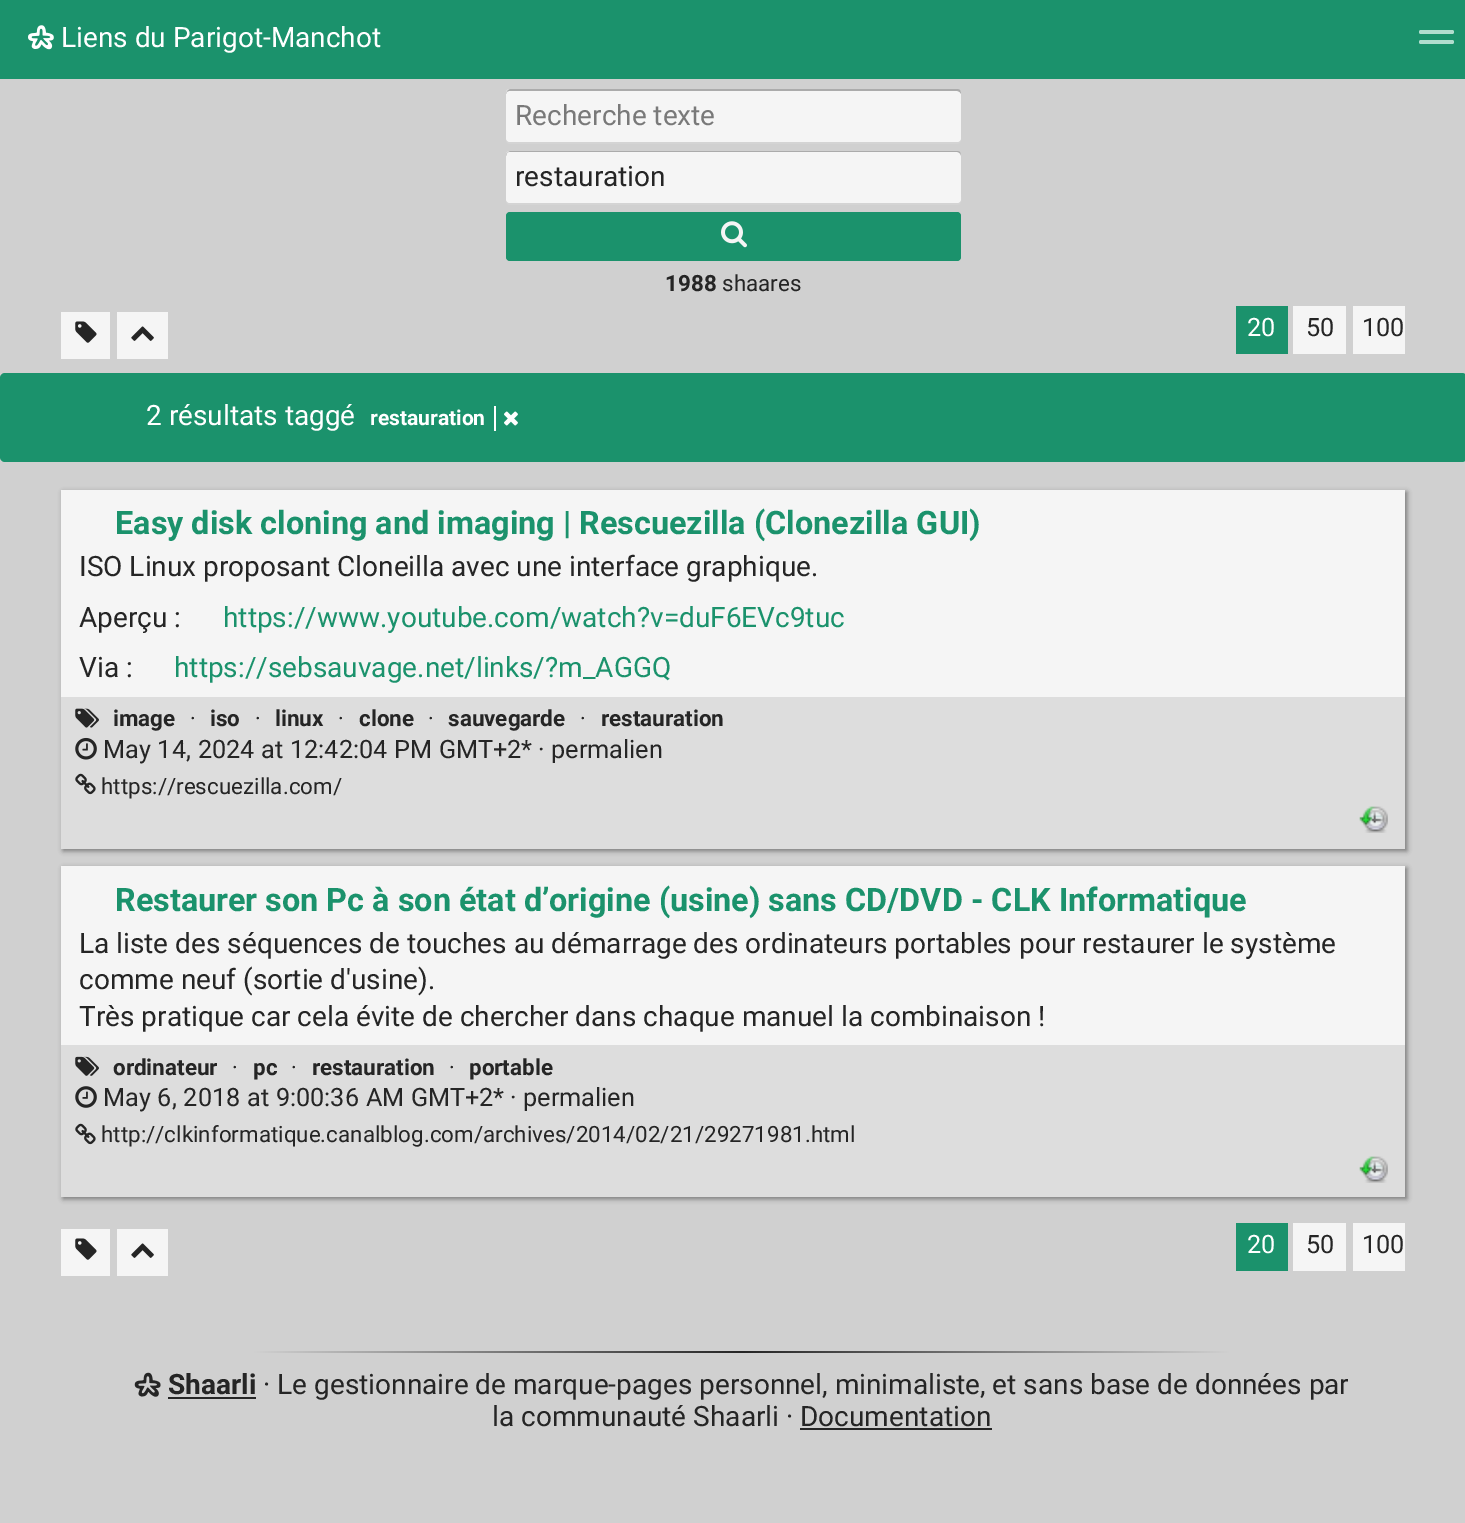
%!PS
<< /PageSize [1465 1523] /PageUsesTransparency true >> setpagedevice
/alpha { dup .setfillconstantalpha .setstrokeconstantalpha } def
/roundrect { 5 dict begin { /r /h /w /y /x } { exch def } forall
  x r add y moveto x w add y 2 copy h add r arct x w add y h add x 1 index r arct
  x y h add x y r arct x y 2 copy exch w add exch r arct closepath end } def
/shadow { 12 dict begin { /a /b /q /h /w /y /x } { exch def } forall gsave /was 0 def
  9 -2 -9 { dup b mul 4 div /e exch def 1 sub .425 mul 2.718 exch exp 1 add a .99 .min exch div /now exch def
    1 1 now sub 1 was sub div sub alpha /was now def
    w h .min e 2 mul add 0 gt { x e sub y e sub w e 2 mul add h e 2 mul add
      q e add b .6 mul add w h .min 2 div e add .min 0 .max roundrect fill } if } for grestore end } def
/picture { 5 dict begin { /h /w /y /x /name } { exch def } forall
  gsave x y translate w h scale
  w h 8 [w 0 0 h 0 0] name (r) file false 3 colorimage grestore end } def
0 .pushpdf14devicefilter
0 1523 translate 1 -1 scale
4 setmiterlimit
0.816 setgray
0 0 1465 1523 rectfill
0.106 0.573 0.424 setrgbcolor
0 0 1465 79 rectfill
(img1.rgb) 28 25 26 25 picture
/Roboto-Regular [28 0 0 -28 0 0] selectfont
1 setgray
61 47 moveto (Liens du Parigot-Manchot) show
0.69 0.867 0.808 setrgbcolor
1419 30 35 4 2 roundrect fill
1419 40 35 4 2 roundrect fill
0.831 setgray
newpath 506 140 moveto 506 142 508 144 510 144 curveto 957 144 lineto 959 144 961 142 961 140 curveto 961 94 lineto 961 138 lineto 961 140 959 142 957 142 curveto 509 142 lineto 508 142 507 141 506 140 curveto closepath fill
0.961 setgray
506 89 455 53 4 roundrect fill
0.3 alpha
0 setgray
newpath 509 91 moveto 957 91 lineto 959 91 961 93 961 94 curveto 961 91 960 89 957 89 curveto 510 89 lineto 508 90 lineto 507 91 lineto 506 94 lineto 506 93 507 91 509 91 curveto closepath fill
1 alpha
0.475 setgray
515 125 moveto (Recherche texte) show
0.831 setgray
newpath 506 201 moveto 506 203 508 205 510 205 curveto 957 205 lineto 963 205 961 196 961 194 curveto 961 155 lineto 961 200 lineto 961 201 959 203 957 203 curveto 509 203 lineto 508 203 507 202 506 201 curveto closepath fill
0.961 setgray
506 151 455 52 4 roundrect fill
0.3 alpha
0 setgray
newpath 509 152 moveto 957 152 lineto 959 152 961 154 961 156 curveto 961 153 960 151 957 151 curveto 510 151 lineto 508 152 lineto 507 153 lineto 506 156 lineto 506 154 507 152 509 152 curveto closepath fill
1 alpha
0.145 setgray
515 186 moveto (restauration) show
0.106 0.573 0.424 setrgbcolor
506 212 455 49 4 roundrect fill
(img2.rgb) 721 221 26 27 picture
/Roboto-Bold [22.4 0 0 -22.4 0 0] selectfont
0.145 setgray
665 291 moveto (1988) show
/Roboto-Regular [22.4 0 0 -22.4 0 0] selectfont
722 291 moveto (shaares) show
0.961 setgray
61 312 49 47 rectfill
(img3.rgb) 75 321 22 22 picture
117 312 51 47 rectfill
(img4.rgb) 131 326 23 15 picture
0.106 0.573 0.424 setrgbcolor
1236 306 52 48 rectfill
/Roboto-Regular [25.25 0 0 -25.25 0 0] selectfont
1 setgray
1247 336 moveto (20) show
0.961 setgray
1293 306 53 48 rectfill
0.145 setgray
1306 336 moveto (50) show
0.961 setgray
1353 306 52 48 rectfill
0.145 setgray
1362 336 moveto (100) show
0.106 0.573 0.424 setrgbcolor
0 373 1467 89 5 roundrect fill
/Roboto-Regular [28 0 0 -28 0 0] selectfont
1 setgray
146 425 moveto (2 résultats taggé) show
/Roboto-Bold [21 0 0 -21 0 0] selectfont
370 425 moveto (restauration) show
494 406 2 25 rectfill
(img5.rgb) 504 411 14 15 picture
0.475 setgray
63 492 1344 359 0 2.5 1 shadow
0.961 setgray
61 490 1344 207 rectfill
/Roboto-Bold [32.35 0 0 -32.35 0 0] selectfont
0.106 0.573 0.424 setrgbcolor
115 534 moveto (Easy disk cloning and imaging | Rescuezilla \(Clonezilla GUI\)) show
/Roboto-Regular [28 0 0 -28 0 0] selectfont
0.145 setgray
79 576 moveto (ISO Linux proposant Cloneilla avec une interface graphique.) show
79 627 moveto (Aperçu :) show
0.106 0.573 0.424 setrgbcolor
223 627 moveto (https://www.youtube.com/watch?v=duF6EVc9tuc) show
0.145 setgray
79 677 moveto (Via :) show
0.106 0.573 0.424 setrgbcolor
174 677 moveto (https://sebsauvage.net/links/?m_AGGQ) show
0.867 setgray
61 697 1344 152 rectfill
(img6.rgb) 75 708 24 20 picture
/Roboto-Bold [22.4 0 0 -22.4 0 0] selectfont
0.145 setgray
113 726 moveto (image) show
/Roboto-Regular [22.4 0 0 -22.4 0 0] selectfont
190 726 moveto (·) show
/Roboto-Bold [22.4 0 0 -22.4 0 0] selectfont
210 726 moveto (iso) show
/Roboto-Regular [22.4 0 0 -22.4 0 0] selectfont
255 726 moveto (·) show
/Roboto-Bold [22.4 0 0 -22.4 0 0] selectfont
275 726 moveto (linux) show
/Roboto-Regular [22.4 0 0 -22.4 0 0] selectfont
338 726 moveto (·) show
/Roboto-Bold [22.4 0 0 -22.4 0 0] selectfont
359 726 moveto (clone) show
/Roboto-Regular [22.4 0 0 -22.4 0 0] selectfont
428 726 moveto (·) show
/Roboto-Bold [22.4 0 0 -22.4 0 0] selectfont
448 726 moveto (sauvegarde) show
/Roboto-Regular [22.4 0 0 -22.4 0 0] selectfont
580 726 moveto (·) show
/Roboto-Bold [22.4 0 0 -22.4 0 0] selectfont
601 726 moveto (restauration) show
(img7.rgb) 75 737 22 23 picture
/Roboto-Regular [25.25 0 0 -25.25 0 0] selectfont
103 758 moveto 0.5 0 32 (May 14, 2024 at 12:42:04 PM GMT+2) widthshow
521 758 moveto (* · permalien) show
(img8.rgb) 75 773 21 22 picture
/Roboto-Regular [22.4 0 0 -22.4 0 0] selectfont
101 794 moveto (https://rescuezilla.com/) show
(img9.rgb) 1359 806 29 27 picture
0.475 setgray
63 868 1344 331 0 2.5 1 shadow
0.961 setgray
61 866 1344 179 rectfill
/Roboto-Bold [32.35 0 0 -32.35 0 0] selectfont
0.106 0.573 0.424 setrgbcolor
115 911 moveto (Restaurer son Pc à son état d’origine \(usine\) sans CD/DVD - CLK Informatique) show
/Roboto-Regular [28 0 0 -28 0 0] selectfont
0.145 setgray
79 953 moveto (La liste des séquences de touches au démarrage des ordinateurs portables pour restaurer le système) show
79 989 moveto (comme neuf \(sortie d'usine\).) show
79 1026 moveto (Très pratique car cela évite de chercher dans chaque manuel la combinaison !) show
0.867 setgray
61 1045 1344 152 rectfill
(img10.rgb) 75 1056 24 20 picture
/Roboto-Bold [22.4 0 0 -22.4 0 0] selectfont
0.145 setgray
113 1075 moveto (ordinateur) show
/Roboto-Regular [22.4 0 0 -22.4 0 0] selectfont
232 1075 moveto (·) show
/Roboto-Bold [22.4 0 0 -22.4 0 0] selectfont
253 1075 moveto (pc) show
/Roboto-Regular [22.4 0 0 -22.4 0 0] selectfont
291 1075 moveto (·) show
/Roboto-Bold [22.4 0 0 -22.4 0 0] selectfont
312 1075 moveto (restauration) show
/Roboto-Regular [22.4 0 0 -22.4 0 0] selectfont
449 1075 moveto (·) show
/Roboto-Bold [22.4 0 0 -22.4 0 0] selectfont
469 1075 moveto (portable) show
(img11.rgb) 75 1086 22 22 picture
/Roboto-Regular [25.25 0 0 -25.25 0 0] selectfont
103 1106 moveto 0.5 0 32 (May 6, 2018 at 9:00:36 AM GMT+2) widthshow
493 1106 moveto (* · permalien) show
(img8.rgb) 75 1123 21 22 picture
/Roboto-Regular [22.4 0 0 -22.4 0 0] selectfont
101 1142 moveto (http://clkinformatique.canalblog.com/archives/2014/02/21/29271981.html) show
(img9.rgb) 1359 1156 29 27 picture
0.961 setgray
61 1229 49 47 rectfill
(img3.rgb) 75 1238 22 22 picture
117 1229 51 47 rectfill
(img4.rgb) 131 1243 23 15 picture
0.106 0.573 0.424 setrgbcolor
1236 1223 52 48 rectfill
/Roboto-Regular [25.25 0 0 -25.25 0 0] selectfont
1 setgray
1247 1253 moveto (20) show
0.961 setgray
1293 1223 53 48 rectfill
0.145 setgray
1306 1253 moveto (50) show
0.961 setgray
1353 1223 52 48 rectfill
0.145 setgray
1362 1253 moveto (100) show
gsave newpath 254 1351 moveto 1230 1351 lineto 1230 1353 lineto 254 1353 lineto closepath clip newpath
<< /ShadingType 2 /ColorSpace /DeviceRGB /Coords [254 1352 1230 1352] /Extend [true true] /Function << /FunctionType 3 /Domain [0 1] /Functions [<< /FunctionType 2 /Domain [0 1] /C0 [0.816 0.816 0.816] /C1 [0.145 0.145 0.145] /N 1 >> << /FunctionType 2 /Domain [0 1] /C0 [0.145 0.145 0.145] /C1 [0.816 0.816 0.816] /N 1 >>] /Bounds [0.5] /Encode [0 1 0 1] >> >> shfill grestore
(img12.rgb) 134 1372 27 25 picture
/Roboto-Bold [28 0 0 -28 0 0] selectfont
168 1394 moveto (Shaarli) show
168 1397 88 2 rectfill
/Roboto-Regular [28 0 0 -28 0 0] selectfont
263 1394 moveto (· Le gestionnaire de marque-pages personnel, minimaliste, et sans base de données par) show
492 1426 moveto (la communauté Shaarli · Documentation) show
800 1428 192 2 rectfill
.poppdf14devicefilter showpage
